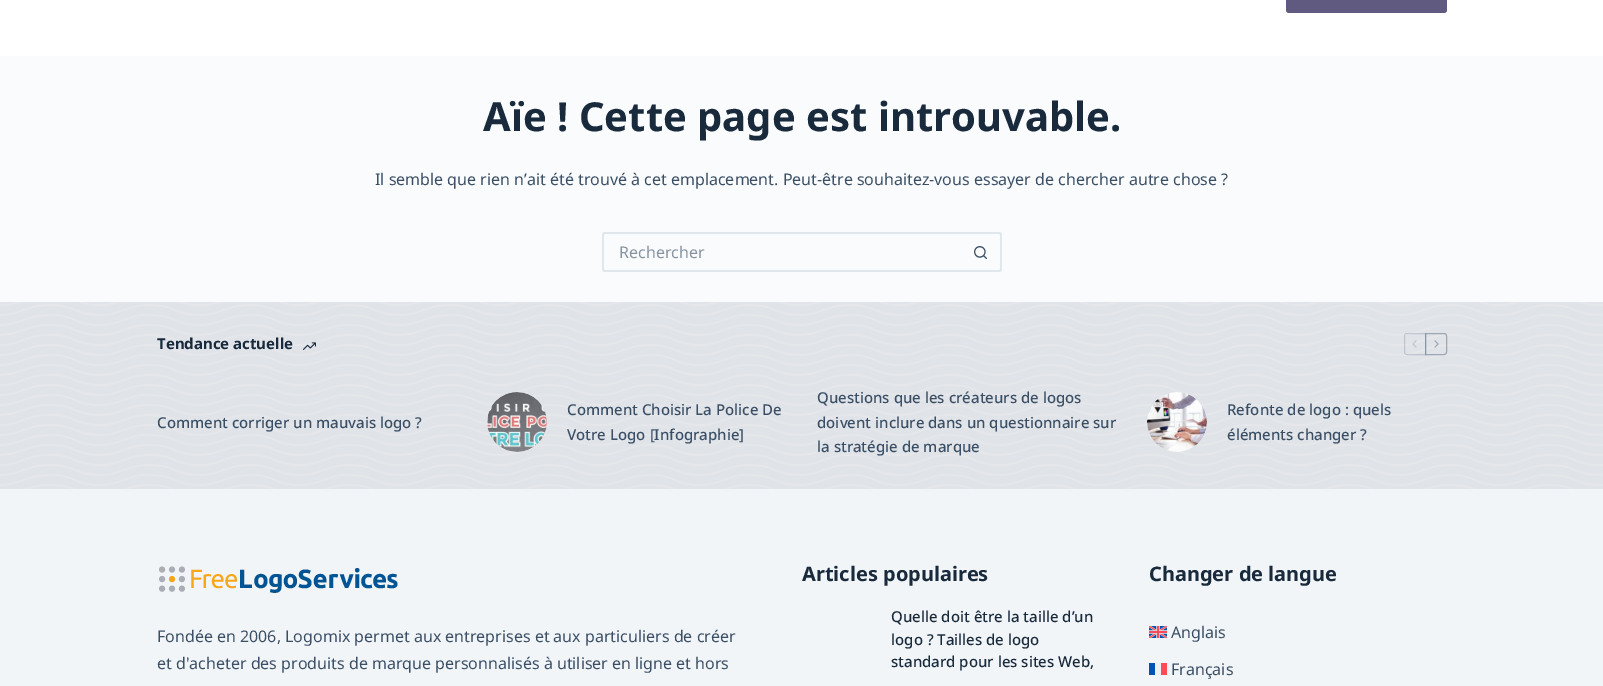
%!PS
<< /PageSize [1603 686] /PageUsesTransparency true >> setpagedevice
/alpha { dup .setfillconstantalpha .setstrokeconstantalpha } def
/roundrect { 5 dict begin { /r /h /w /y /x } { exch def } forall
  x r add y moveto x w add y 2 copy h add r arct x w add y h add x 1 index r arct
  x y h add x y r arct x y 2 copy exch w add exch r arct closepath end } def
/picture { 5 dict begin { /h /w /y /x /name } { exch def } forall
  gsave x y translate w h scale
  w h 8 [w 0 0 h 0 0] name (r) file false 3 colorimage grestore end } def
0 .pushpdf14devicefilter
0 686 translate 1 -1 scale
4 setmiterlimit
0.98 0.984 0.988 setrgbcolor
0 0 1603 686 rectfill
1 setgray
0 0 1603 56 rectfill
0.38 0.353 0.502 setrgbcolor
1286 -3 161 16 3 roundrect fill
/NotoSans-Bold [40 0 0 -40 0 0] selectfont
0.098 0.165 0.239 setrgbcolor
483 131 moveto (Aïe ! Cette page est introuvable.) show
/NotoSans-Regular [16 0 0 -16 0 0] selectfont
0.227 0.31 0.4 setrgbcolor
375 185 moveto (Il semble que rien n’ait été trouvé à cet emplacement. Peut-être souhaitez-vous essayer de chercher autre chose ?) show
0.882 0.91 0.929 setrgbcolor
newpath 605 232 moveto 962 232 lineto 962 272 lineto 605 272 lineto 603 272 602 271 602 269 curveto 602 235 lineto 602 233 603 232 605 232 curveto closepath 605 234 moveto 962 234 lineto 962 270 lineto 605 270 lineto 604 269 lineto 604 235 lineto closepath eofill
0.529 0.58 0.635 setrgbcolor
619 258 moveto (Rechercher) show
0.882 0.91 0.929 setrgbcolor
newpath 962 232 moveto 999 232 lineto 1001 232 1002 233 1002 235 curveto 1002 269 lineto 1002 271 1001 272 999 272 curveto 962 272 lineto closepath 962 234 moveto 999 234 lineto 1000 234 1000 234 1000 235 curveto 1000 269 lineto 1000 270 1000 270 999 270 curveto 962 270 lineto closepath eofill
(img1.rgb) 974 246 13 13 picture
0.878 0.89 0.91 setrgbcolor
0 302 1603 187 rectfill
(img2.rgb) 0 302 1603 187 picture
/NotoSans-Bold [15 0 0 -15 0 0] selectfont
0.098 0.165 0.239 setrgbcolor
157 349 moveto (Tendance actuelle) show
(img3.rgb) 303 342 13 8 picture
0.2 alpha
0.227 0.31 0.4 setrgbcolor
newpath 1407 333.5 moveto 1425.5 333.5 lineto 1425.5 354.5 lineto 1407 354.5 lineto 1405.5 354.5 1404.5 353.5 1404.5 352 curveto 1404.5 336 lineto 1404.5 334.5 1405.5 333.5 1407 333.5 curveto closepath stroke
1 alpha
(img4.rgb) 1412 340 5 8 picture
0.4 alpha
newpath 1425.5 333.5 moveto 1444 333.5 lineto 1445.5 333.5 1446.5 334.5 1446.5 336 curveto 1446.5 352 lineto 1446.5 353.5 1445.5 354.5 1444 354.5 curveto 1425.5 354.5 lineto closepath stroke
1 alpha
(img5.rgb) 1434 340 5 8 picture
/NotoSans-Medium [15 0 0 -15 0 0] selectfont
157 428 moveto (Comment corriger un mauvais logo ?) show
(img6.rgb) 487 392 60 60 picture
567 415 moveto (Comment Choisir La Police De) show
567 440 moveto (Votre Logo [Infographie]) show
817 403 moveto (Questions que les créateurs de logos) show
817 428 moveto (doivent inclure dans un questionnaire sur) show
817 452 moveto (la stratégie de marque) show
(img7.rgb) 1147 392 60 60 picture
1227 415 moveto (Refonte de logo : quels) show
1227 440 moveto (éléments changer ?) show
0.949 0.961 0.969 setrgbcolor
0 489 1603 197 rectfill
(img8.rgb) 159 566 239 27 picture
/NotoSans-Regular [16 0 0 -16 0 0] selectfont
0.227 0.31 0.4 setrgbcolor
157 642 moveto (Fondée en 2006, Logomix permet aux entreprises et aux particuliers de créer) show
157 669 moveto (et d'acheter des produits de marque personnalisés à utiliser en ligne et hors) show
/NotoSans-Bold [20 0 0 -20 0 0] selectfont
0.098 0.165 0.239 setrgbcolor
802 581 moveto (Articles populaires) show
/NotoSans-Medium [15 0 0 -15 0 0] selectfont
891 622 moveto (Quelle doit être la taille d’un) show
891 645 moveto (logo ? Tailles de logo) show
891 667 moveto (standard pour les sites Web,) show
/NotoSans-Bold [20 0 0 -20 0 0] selectfont
1149 581 moveto (Changer de langue) show
(img9.rgb) 1149 626 18 12 picture
/NotoSans-Regular [16 0 0 -16 0 0] selectfont
0.227 0.31 0.4 setrgbcolor
1171 638 moveto (Anglais) show
0.941 setgray
1155 663 6 12 rectfill
1 0.294 0.333 setrgbcolor
1161 663 6 12 rectfill
0 0.322 0.706 setrgbcolor
1149 663 6 12 rectfill
0.227 0.31 0.4 setrgbcolor
1171 675 moveto (Français) show
.poppdf14devicefilter showpage
